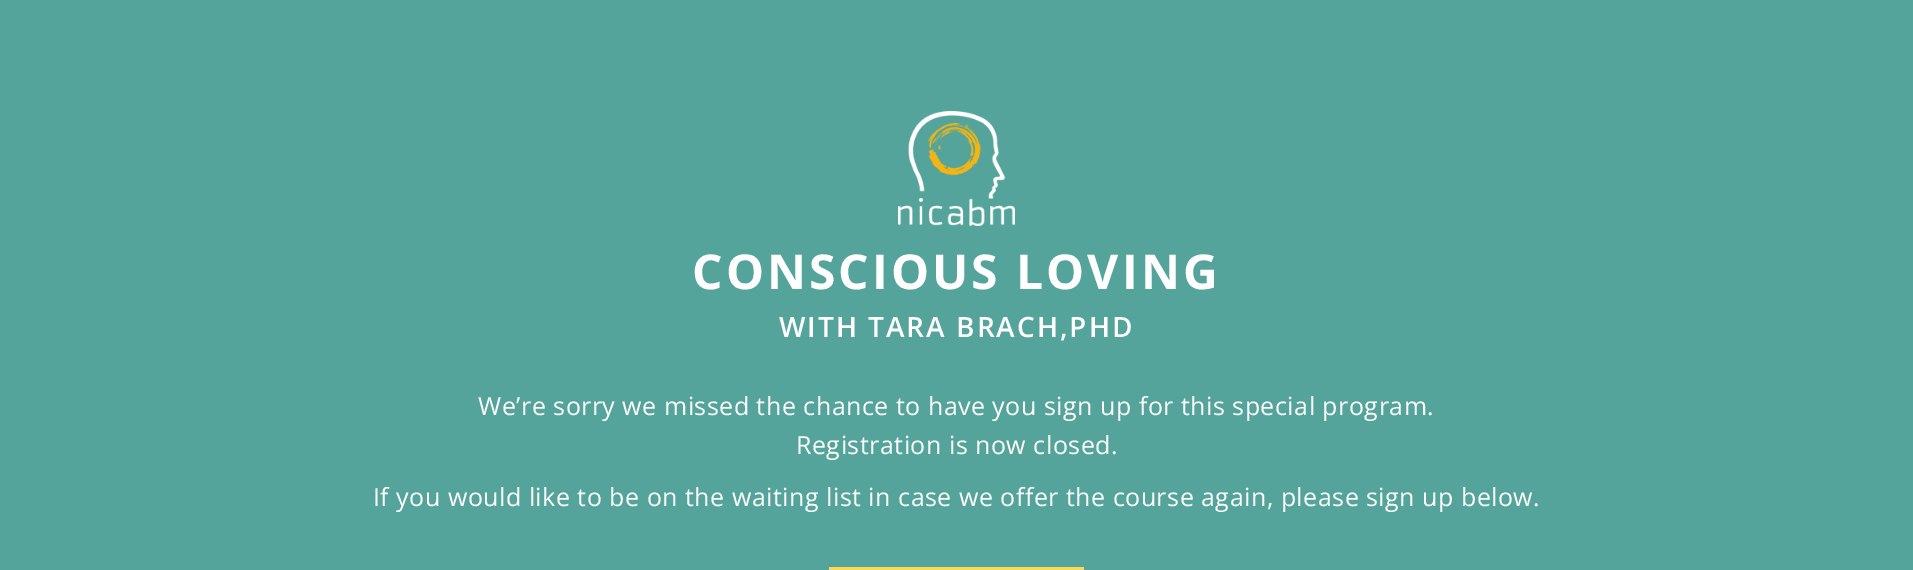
%!PS
<< /PageSize [1913 570] >> setpagedevice
/picture { 5 dict begin { /h /w /y /x /name } { exch def } forall
  gsave x y translate w h scale
  w h 8 [w 0 0 h 0 0] name (r) file false 3 colorimage grestore end } def
0 570 translate 1 -1 scale
4 setmiterlimit
0.333 0.643 0.612 setrgbcolor
0 0 1913 570 rectfill
(img1.rgb) 898 111 117 115 picture
/OpenSans-Bold [48 0 0 -48 0 0] selectfont
1 setgray
692 289 moveto 3 0 (CONSCIOUS LOVING) ashow
/OpenSans-SemiBold [28 0 0 -28 0 0] selectfont
779 337 moveto 2 0 (WITH TARA BRACH,PHD) ashow
/OpenSans-Regular [25 0 0 -25 0 0] selectfont
478 415 moveto 0.5 0 (We’re sorry we missed the chance to have you sign up for this special program.) ashow
796 454 moveto 0.5 0 (Registration is now closed.) ashow
373 506 moveto 0.5 0 (If you would like to be on the waiting list in case we offer the course again, please sign up below.) ashow
0.984 0.859 0.333 setrgbcolor
829 567 255 3 rectfill
showpage
